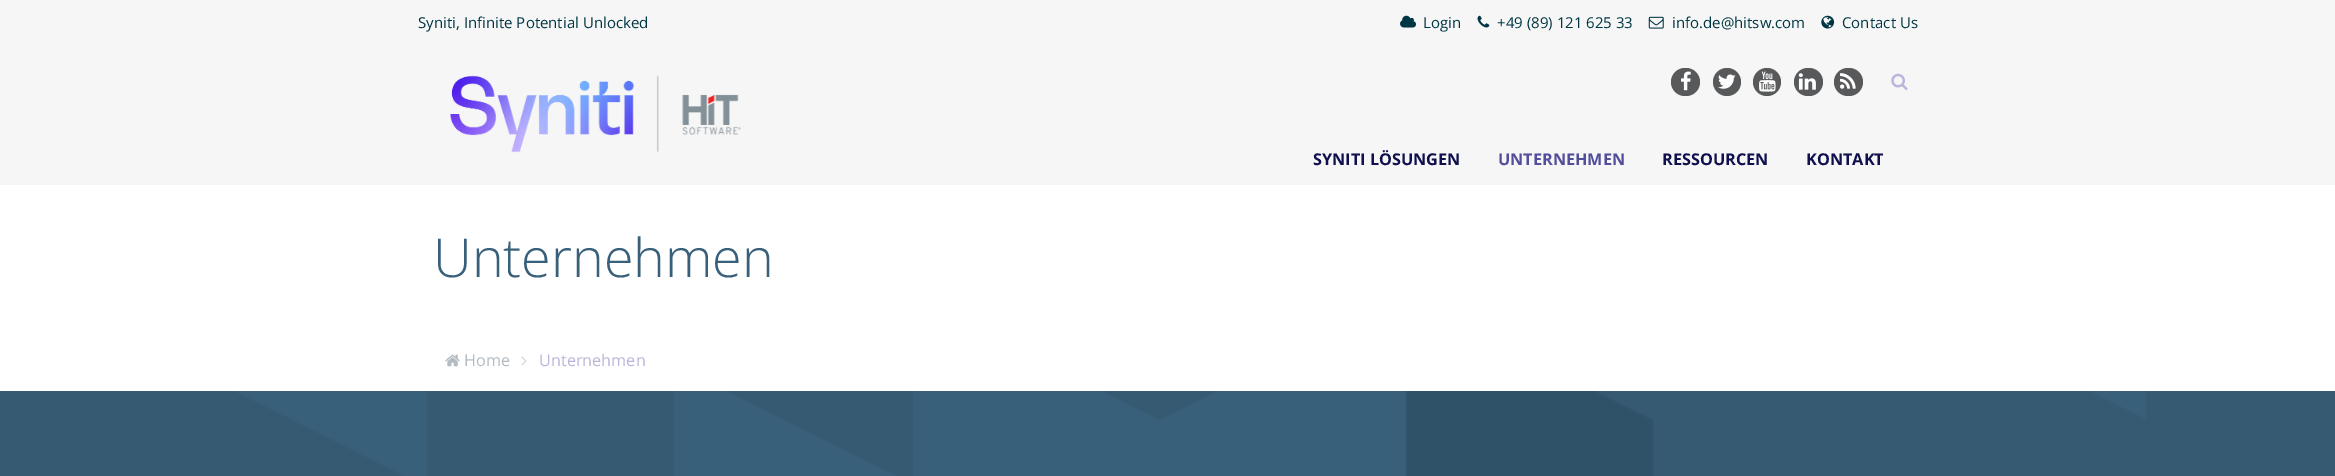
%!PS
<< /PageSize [2335 476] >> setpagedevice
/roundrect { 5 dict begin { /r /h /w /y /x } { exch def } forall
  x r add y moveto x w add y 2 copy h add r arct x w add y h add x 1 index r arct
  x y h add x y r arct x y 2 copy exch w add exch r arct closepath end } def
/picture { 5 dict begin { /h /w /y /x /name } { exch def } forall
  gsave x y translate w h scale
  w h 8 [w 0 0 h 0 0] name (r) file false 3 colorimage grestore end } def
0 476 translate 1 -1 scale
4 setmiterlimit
1 setgray
0 0 2335 476 rectfill
0.965 setgray
0 0 2335 185 rectfill
/OpenSans-Regular [15 0 0 -15 0 0] selectfont
0 0.212 0.267 setrgbcolor
418 28 moveto (Syniti, Infinite Potential Unlocked) show
(img1.rgb) 1400 15 17 13 picture
1423 28 moveto (Login) show
(img2.rgb) 1477 15 13 13 picture
1497 28 moveto (+49 \(89\) 121 625 33) show
(img3.rgb) 1648 16 16 13 picture
1672 28 moveto (info.de@hitsw.com) show
(img4.rgb) 1821 15 14 14 picture
1842 28 moveto (Contact Us) show
(img5.rgb) 450 75 292 78 picture
0.345 0.349 0.357 setrgbcolor
1671 68 29 28 14 roundrect fill
(img6.rgb) 1681 71 10 20 picture
newpath 1727 82 14 0 360 arc closepath fill
(img7.rgb) 1718 74 18 15 picture
newpath 1767 82 14 0 360 arc closepath fill
(img8.rgb) 1759 71 17 21 picture
1794 68 29 28 14 roundrect fill
(img9.rgb) 1798 73 18 17 picture
1834 68 29 28 14 roundrect fill
(img10.rgb) 1840 73 16 16 picture
(img11.rgb) 1891 73 17 17 picture
/OpenSans-Bold [16.25 0 0 -16.25 0 0] selectfont
0.063 0.063 0.306 setrgbcolor
1313 165 moveto (SYNITI LÖSUNGEN) show
0.322 0.306 0.608 setrgbcolor
1498 165 moveto (UNTERNEHMEN) show
0.063 0.063 0.306 setrgbcolor
1662 165 moveto (RESSOURCEN) show
1806 165 moveto (KONTAKT) show
/OpenSans-Light [53.75 0 0 -53.75 0 0] selectfont
0.224 0.376 0.478 setrgbcolor
433 277 moveto (Unternehmen) show
(img12.rgb) 445 354 15 13 picture
/OpenSans-Regular [16.25 0 0 -16.25 0 0] selectfont
0.706 0.733 0.757 setrgbcolor
464 366 moveto (Home) show
(img13.rgb) 521 356 6 10 picture
0.733 0.71 0.859 setrgbcolor
539 366 moveto (Unternehmen) show
(img14.rgb) 0 391 2335 85 picture
showpage
